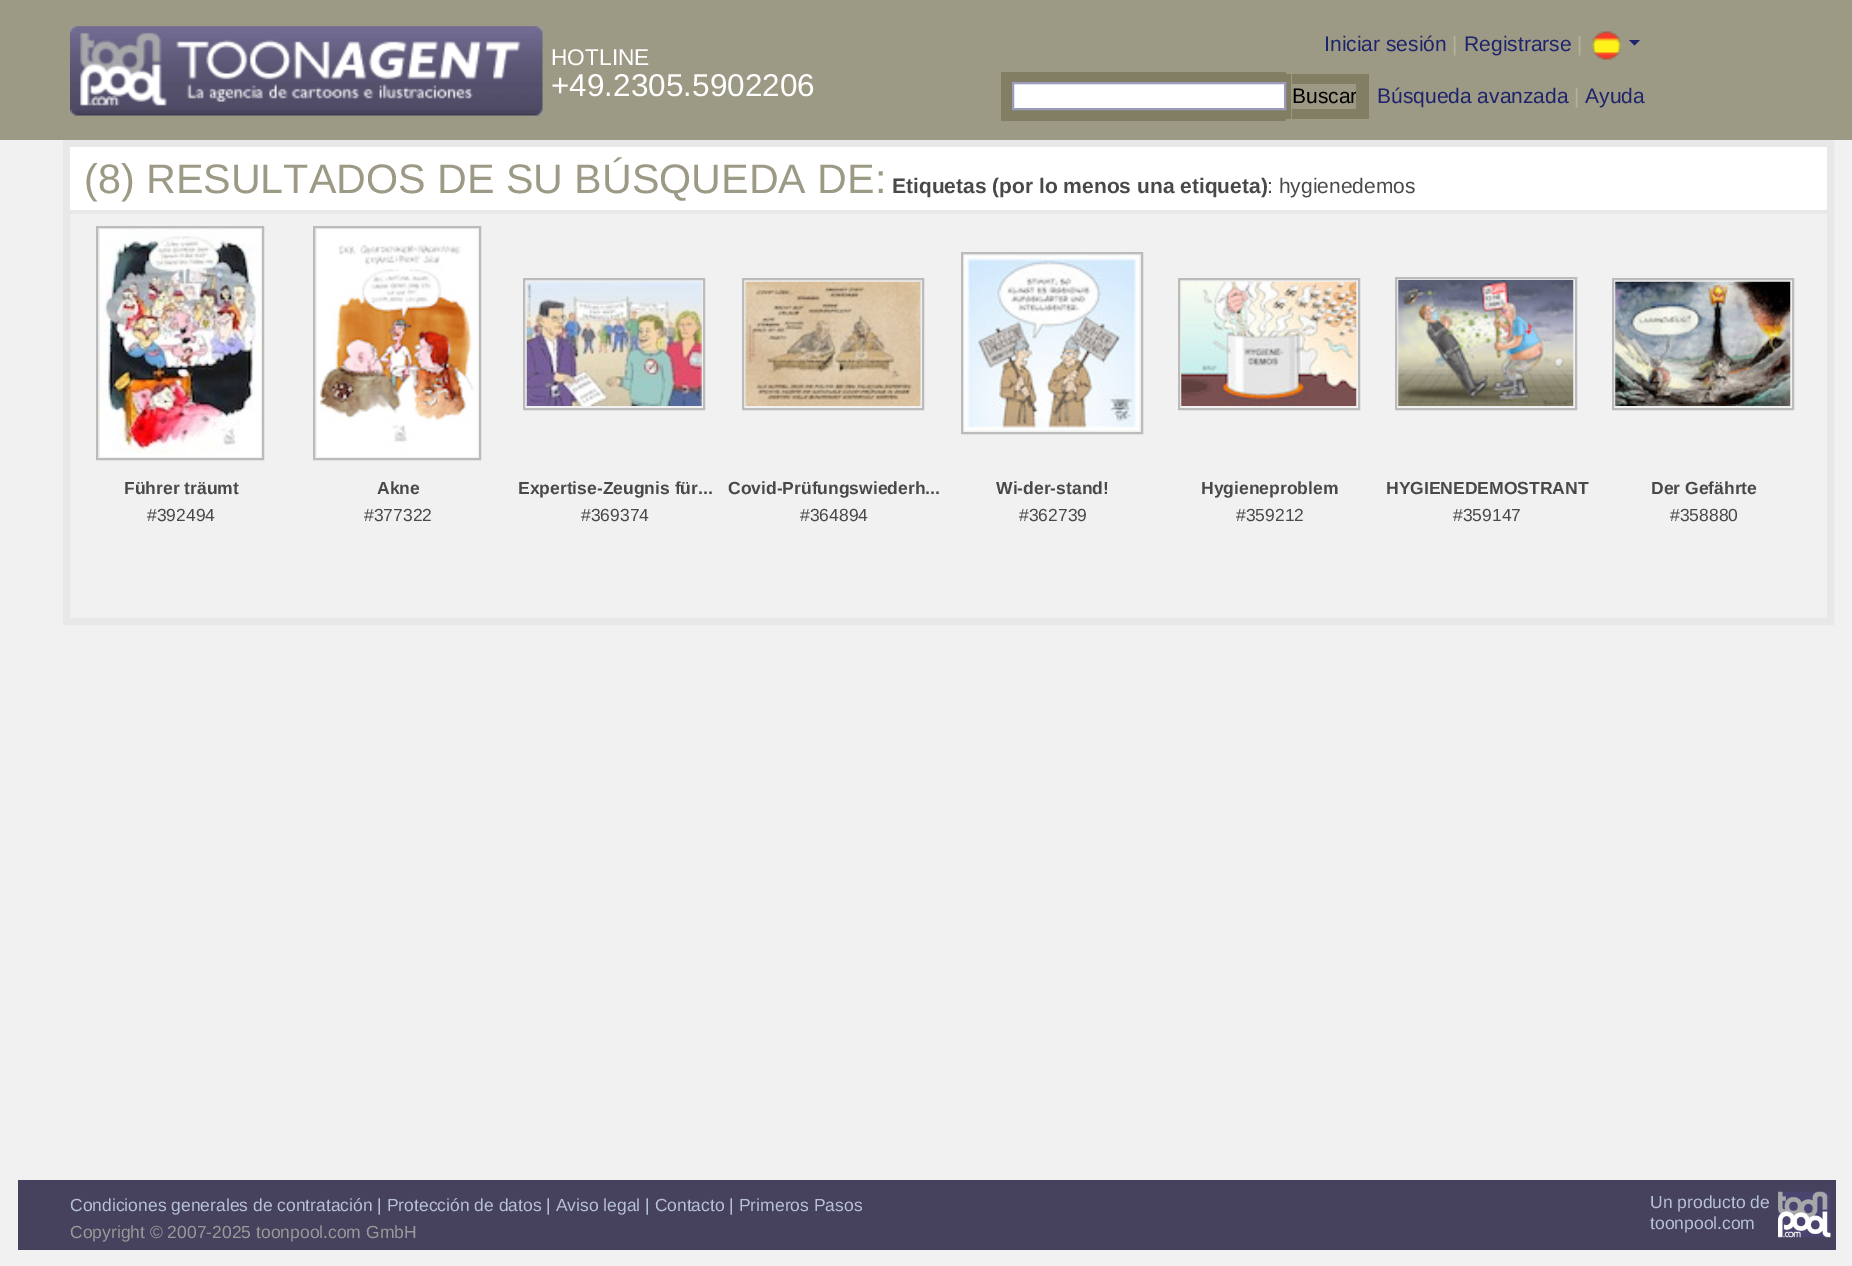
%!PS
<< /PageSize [1852 1266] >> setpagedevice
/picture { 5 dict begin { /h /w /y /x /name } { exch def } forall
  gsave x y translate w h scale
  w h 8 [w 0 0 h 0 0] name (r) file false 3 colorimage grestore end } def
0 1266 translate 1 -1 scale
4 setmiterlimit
0.945 setgray
0 0 1852 1266 rectfill
0.612 0.6 0.518 setrgbcolor
0 0 1852 140 rectfill
/LiberationSans-Regular [21 0 0 -21 0 0] selectfont
0.114 0.141 0.424 setrgbcolor
1324 51 moveto (Iniciar sesión) show
0.71 0.698 0.608 setrgbcolor
1452 51 moveto (|) show
0.114 0.141 0.424 setrgbcolor
1464 51 moveto (Registrarse) show
0.71 0.698 0.608 setrgbcolor
1577 51 moveto (|) show
(img1.rgb) 1592 31 29 29 picture
0.114 0.141 0.424 setrgbcolor
newpath 1629 40 moveto 1640 40 lineto 1634.5 45.5 lineto closepath fill
(img2.rgb) 70 26 473 90 picture
/LiberationSans-Regular [22.75 0 0 -22.75 0 0] selectfont
1 setgray
551 65 moveto (HOTLINE) show
/LiberationSans-Regular [31.5 0 0 -31.5 0 0] selectfont
551 96 moveto (+49.2305.5902206) show
0.51 0.494 0.388 setrgbcolor
1001 72 285 49 rectfill
1286 74 5 45 rectfill
1292 74 77 45 rectfill
1 setgray
newpath 1013 83 moveto 1285 83 lineto 1285 109 lineto 1013 109 lineto closepath gsave fill grestore
0.6 0.612 0.733 setrgbcolor
2 setlinewidth
stroke
0.612 0.6 0.518 setrgbcolor
1292 84 64 25 rectfill
gsave
1292 84 64 25 rectclip
/LiberationSans-Regular [21 0 0 -21 0 0] selectfont
0 setgray
1292 103 moveto (Buscar) show
grestore
/LiberationSans-Regular [21 0 0 -21 0 0] selectfont
0.114 0.141 0.424 setrgbcolor
1377 103 moveto (Búsqueda avanzada) show
0.71 0.698 0.608 setrgbcolor
1574 103 moveto (|) show
0.114 0.141 0.424 setrgbcolor
1585 103 moveto (Ayuda) show
0.91 setgray
7 setlinewidth
66.5 143.5 1764 478 rectstroke
1 setgray
70 147 1757 63 rectfill
/LiberationSans-Regular [41.25 0 0 -41.25 0 0] selectfont
0.612 0.6 0.518 setrgbcolor
84 193 moveto (\(8\) RESULTADOS DE SU BÚSQUEDA DE:) show
/LiberationSans-Bold [21 0 0 -21 0 0] selectfont
0.286 setgray
892 193 moveto (Etiquetas \(por lo menos una etiqueta\)) show
/LiberationSans-Regular [21 0 0 -21 0 0] selectfont
1267 193 moveto (: hygienedemos) show
0.91 setgray
70 210 1757 4 rectfill
0.733 setgray
2 setlinewidth
97 227 166 232 rectstroke
(img3.rgb) 100 229 161 228 picture
/LiberationSans-Bold [17.5 0 0 -17.5 0 0] selectfont
0.286 setgray
124 494 moveto (Führer träumt) show
/LiberationSans-Regular [17.5 0 0 -17.5 0 0] selectfont
147 521 moveto (#392494) show
0.733 setgray
314 227 166 232 rectstroke
(img4.rgb) 317 229 161 228 picture
/LiberationSans-Bold [17.5 0 0 -17.5 0 0] selectfont
0.286 setgray
377 494 moveto (Akne) show
/LiberationSans-Regular [17.5 0 0 -17.5 0 0] selectfont
364 521 moveto (#377322) show
0.733 setgray
524 279 180 130 rectstroke
(img5.rgb) 526 281 176 125 picture
/LiberationSans-Bold [17.5 0 0 -17.5 0 0] selectfont
0.286 setgray
518 494 moveto (Expertise-Zeugnis für...) show
/LiberationSans-Regular [17.5 0 0 -17.5 0 0] selectfont
581 521 moveto (#369374) show
0.733 setgray
743 279 180 130 rectstroke
(img6.rgb) 745 281 176 125 picture
/LiberationSans-Bold [17.5 0 0 -17.5 0 0] selectfont
0.286 setgray
728 494 moveto (Covid-Prüfungswiederh...) show
/LiberationSans-Regular [17.5 0 0 -17.5 0 0] selectfont
800 521 moveto (#364894) show
0.733 setgray
962 253 180 180 rectstroke
(img7.rgb) 964 255 175 176 picture
/LiberationSans-Bold [17.5 0 0 -17.5 0 0] selectfont
0.286 setgray
996 494 moveto (Wi-der-stand!) show
/LiberationSans-Regular [17.5 0 0 -17.5 0 0] selectfont
1019 521 moveto (#362739) show
0.733 setgray
1179 279 180 130 rectstroke
(img8.rgb) 1181 281 176 125 picture
/LiberationSans-Bold [17.5 0 0 -17.5 0 0] selectfont
0.286 setgray
1201 494 moveto (Hygieneproblem) show
/LiberationSans-Regular [17.5 0 0 -17.5 0 0] selectfont
1236 521 moveto (#359212) show
0.733 setgray
1396 278 180 131 rectstroke
(img9.rgb) 1398 280 176 126 picture
/LiberationSans-Bold [17.5 0 0 -17.5 0 0] selectfont
0.286 setgray
1386 494 moveto (HYGIENEDEMOSTRANT) show
/LiberationSans-Regular [17.5 0 0 -17.5 0 0] selectfont
1453 521 moveto (#359147) show
0.733 setgray
1613 279 180 130 rectstroke
(img10.rgb) 1615 281 176 125 picture
/LiberationSans-Bold [17.5 0 0 -17.5 0 0] selectfont
0.286 setgray
1651 494 moveto (Der Gefährte) show
/LiberationSans-Regular [17.5 0 0 -17.5 0 0] selectfont
1670 521 moveto (#358880) show
0.275 0.255 0.361 setrgbcolor
18 1180 1818 70 rectfill
0.714 0.761 0.847 setrgbcolor
70 1211 moveto (Condiciones generales de contratación | Protección de datos | Aviso legal | Contacto | Primeros Pasos) show
0.6 setgray
70 1238 moveto (Copyright © 2007-2025 toonpool.com GmbH) show
0.714 0.761 0.847 setrgbcolor
1650 1208 moveto (Un producto de) show
(img11.rgb) 1778 1191 53 47 picture
1650 1229 moveto (toonpool.com) show
showpage
